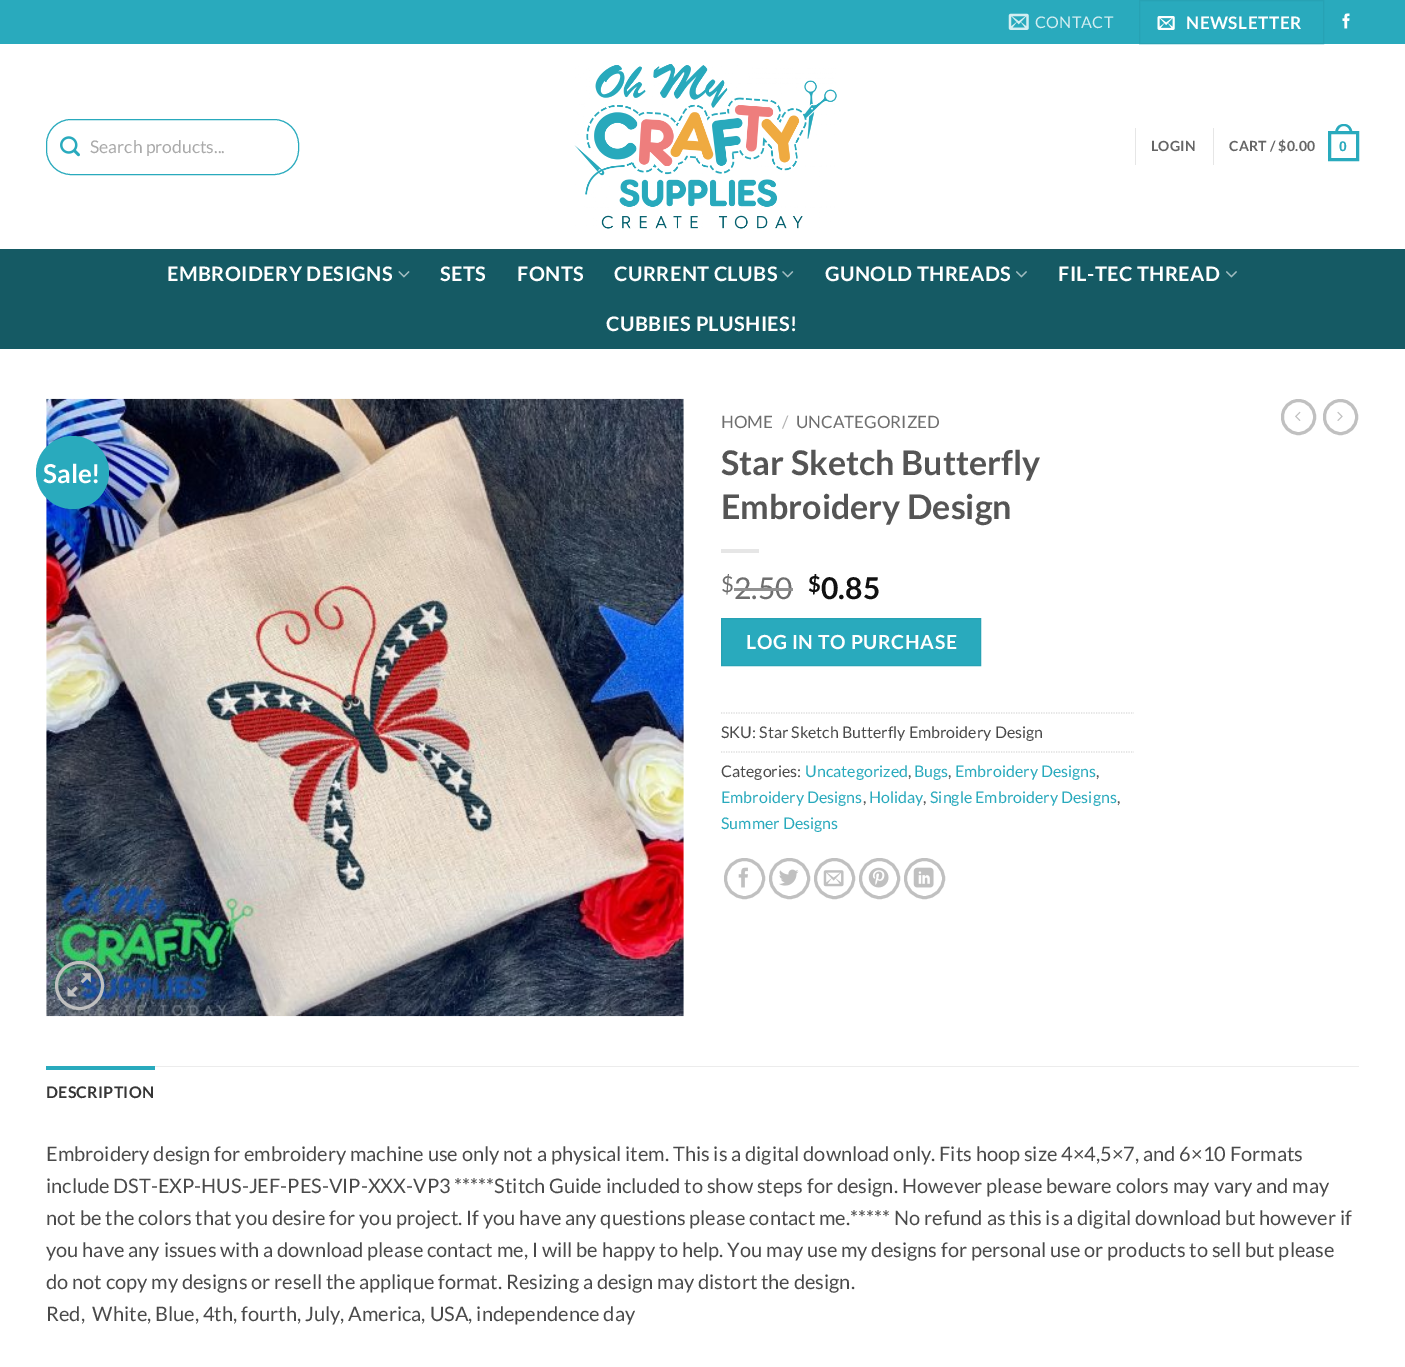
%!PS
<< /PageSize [1405 1367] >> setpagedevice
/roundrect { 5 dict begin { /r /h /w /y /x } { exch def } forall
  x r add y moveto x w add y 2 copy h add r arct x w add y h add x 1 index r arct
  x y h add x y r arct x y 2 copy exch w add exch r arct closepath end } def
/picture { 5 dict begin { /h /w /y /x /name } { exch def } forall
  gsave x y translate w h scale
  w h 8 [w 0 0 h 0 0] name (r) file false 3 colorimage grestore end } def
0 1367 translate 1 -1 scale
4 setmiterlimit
1 setgray
0 0 1405 1367 rectfill
0.161 0.667 0.741 setrgbcolor
0 0 1405 44 rectfill
(img1.rgb) 1008 13 21 17 picture
/Lato-Regular [16 0 0 -16 0 0] selectfont
0.831 0.933 0.949 setrgbcolor
1035 28 moveto 0.25 0 (CONTACT) ashow
0.153 0.635 0.706 setrgbcolor
1139.5 0.5 184 43 rectstroke
(img2.rgb) 1157 16 18 14 picture
/Lato-Bold [17.25 0 0 -17.25 0 0] selectfont
1 setgray
1186 29 moveto 0.5 0 (NEWSLETTER) ashow
(img3.rgb) 1342 13 8 16 picture
0.161 0.667 0.741 setrgbcolor
46.5 119.5 252 55 24.5 roundrect stroke
(img4.rgb) 60 136 20 21 picture
/Lato-Regular [17.5 0 0 -17.5 0 0] selectfont
0.667 setgray
90 153 moveto (Search products...) show
(img5.rgb) 574 64 263 165 picture
0.902 setgray
1135 128 1 37 rectfill
/Lato-Bold [14 0 0 -14 0 0] selectfont
0.396 setgray
1151 151 moveto 0.25 0 (LOGIN) ashow
0.902 setgray
1213 128 1 37 rectfill
0.396 setgray
1229 151 moveto 0.25 0 (CART / $0.00) ashow
0.161 0.667 0.741 setrgbcolor
3 setlinewidth
1329.5 132.5 28 27 rectstroke
newpath 1344 124 moveto 1349.5 124 1352.5 128.5 1352.5 134 curveto 1335 134 lineto 1335 128.5 1338 124 1344 124 curveto closepath 1344 126 moveto 1348 126 1350 130 1350 134 curveto 1337.5 134 lineto 1337.5 130 1339.5 126 1344 126 curveto closepath eofill
/LiberationSans-Bold [14 0 0 -14 0 0] selectfont
1339 151 moveto 0.25 0 (0) ashow
0.082 0.353 0.392 setrgbcolor
0 249 1405 100 rectfill
0.102 0.345 0.38 setrgbcolor
46 249 1313 1 rectfill
/Lato-Bold [20 0 0 -20 0 0] selectfont
1 setgray
167 281 moveto 0.4 0 (EMBROIDERY DESIGNS) ashow
(img6.rgb) 398 271 12 7 picture
440 281 moveto 0.4 0 (SETS) ashow
517 281 moveto 0.4 0 (FONTS) ashow
614 281 moveto 0.4 0 (CURRENT CLUBS) ashow
(img7.rgb) 782 271 12 7 picture
825 281 moveto 0.4 0 (GUNOLD THREADS) ashow
(img8.rgb) 1016 271 11 7 picture
1058 281 moveto 0.4 0 (FIL-TEC THREAD) ashow
(img8.rgb) 1226 271 11 7 picture
606 331 moveto 0.4 0 (CUBBIES PLUSHIES!) ashow
(img9.rgb) 46 398 638 619 picture
0.161 0.667 0.741 setrgbcolor
newpath 72.5 472.5 36.5 0 360 arc closepath fill
/Lato-Bold [26 0 0 -26 0 0] selectfont
1 setgray
43 483 moveto (Sale!) show
0.753 setgray
newpath 79.5 985.5 23 0 360 arc closepath stroke
(img10.rgb) 67 973 24 24 picture
/Lato-Regular [17 0 0 -17 0 0] selectfont
0.431 setgray
721 428 moveto (HOME) show
0.698 setgray
782 428 moveto (/) show
0.431 setgray
796 428 moveto (UNCATEGORIZED) show
/Lato-Bold [34 0 0 -34 0 0] selectfont
0.333 setgray
721 475 moveto (Star Sketch Butterfly) show
721 519 moveto (Embroidery Design) show
0.902 setgray
721 549 38 4 rectfill
/Lato-Regular [22 0 0 -22 0 0] selectfont
0.431 setgray
721 592 moveto ($) show
/Lato-Regular [30 0 0 -30 0 0] selectfont
734 599 moveto (2.50) show
0.573 setgray
734 588 59 3 rectfill
/Lato-Bold [22 0 0 -22 0 0] selectfont
0.067 setgray
808 592 moveto ($) show
/Lato-Bold [30 0 0 -30 0 0] selectfont
821 599 moveto (0.85) show
0.161 0.667 0.741 setrgbcolor
newpath 721.5 618.5 moveto 980.5 618.5 lineto 980.5 665.5 lineto 721.5 665.5 lineto closepath gsave fill grestore
0.153 0.635 0.706 setrgbcolor
1 setlinewidth
stroke
/Lato-Bold [19.4 0 0 -19.4 0 0] selectfont
1 setgray
746 649 moveto 0.6 0 (LOG IN TO PURCHASE) ashow
0.867 setgray
1.2 setlinewidth
[1.25 1.25] 0 setdash
newpath 721 713 moveto 1134 713 lineto stroke
/Lato-Regular [16 0 0 -16 0 0] selectfont
0.29 setgray
721 738 moveto (SKU: Star Sketch Butterfly Embroidery Design) show
0.867 setgray
newpath 721 752 moveto 1134 752 lineto stroke
0.29 setgray
721 777 moveto (Categories:) show
0.161 0.667 0.741 setrgbcolor
805 777 moveto (Uncategorized) show
0.29 setgray
908 777 moveto (,) show
0.161 0.667 0.741 setrgbcolor
914 777 moveto (Bugs) show
0.29 setgray
948 777 moveto (,) show
0.161 0.667 0.741 setrgbcolor
955 777 moveto (Embroidery Designs) show
0.29 setgray
1096 777 moveto (,) show
0.161 0.667 0.741 setrgbcolor
721 803 moveto (Embroidery Designs) show
0.29 setgray
863 803 moveto (,) show
0.161 0.667 0.741 setrgbcolor
869 803 moveto (Holiday) show
0.29 setgray
923 803 moveto (,) show
0.161 0.667 0.741 setrgbcolor
930 803 moveto (Single Embroidery Designs) show
0.29 setgray
1117 803 moveto (,) show
0.161 0.667 0.741 setrgbcolor
721 829 moveto (Summer Designs) show
0.753 setgray
3 setlinewidth
[] 0 setdash
newpath 744.5 878.5 19 0 360 arc closepath stroke
(img11.rgb) 738 867 10 21 picture
newpath 789.5 878.5 19 0 360 arc closepath stroke
(img12.rgb) 779 869 20 17 picture
newpath 834.5 878.5 19 0 360 arc closepath stroke
(img13.rgb) 823 870 21 17 picture
newpath 879.5 878.5 19 0 360 arc closepath stroke
(img14.rgb) 868 867 21 21 picture
newpath 924.5 878.5 19 0 360 arc closepath stroke
(img15.rgb) 913 867 21 21 picture
1282.5 400.5 32 33 16 roundrect stroke
(img16.rgb) 1295 411 6 10 picture
1324.5 400.5 32 33 16 roundrect stroke
(img17.rgb) 1337 411 6 10 picture
0.925 setgray
155 1066 1204 1 rectfill
0.161 0.667 0.741 setrgbcolor
46 1066 109 4 rectfill
/Lato-Bold [16 0 0 -16 0 0] selectfont
0.212 setgray
46 1098 moveto 0.25 0 (DESCRIPTION) ashow
/Lato-Regular [20 0 0 -20 0 0] selectfont
0.29 setgray
46 1161 moveto (Embroidery design for embroidery machine use only not a physical item. This is a digital download only. Fits hoop size 4×4,5×7, and 6×10 Formats) show
46 1193 moveto (include DST-EXP-HUS-JEF-PES-VIP-XXX-VP3 *****Stitch Guide included to show steps for design. However please beware colors may vary and may) show
46 1225 moveto (not be the colors that you desire for you project. If you have any questions please contact me.***** No refund as this is a digital download but however if) show
46 1257 moveto (you have any issues with a download please contact me, I will be happy to help. You may use my designs for personal use or products to sell but please) show
46 1289 moveto (do not copy my designs or resell the applique format. Resizing a design may distort the design.) show
46 1321 moveto (Red,  White, Blue, 4th, fourth, July, America, USA, independence day) show
showpage
